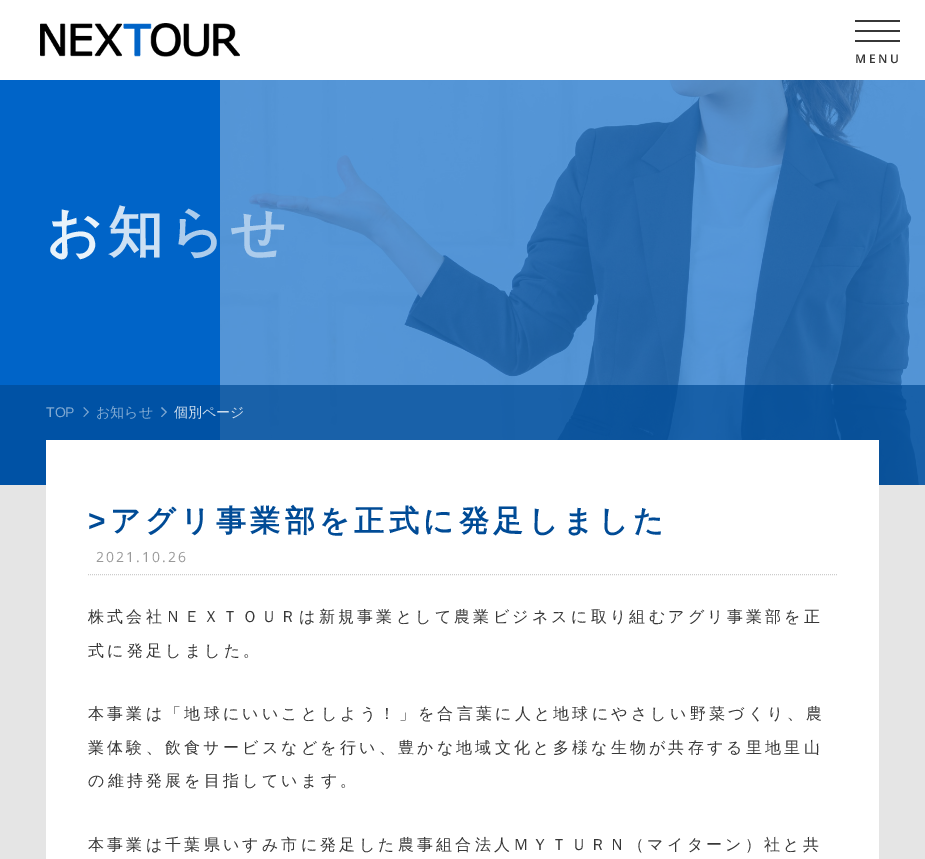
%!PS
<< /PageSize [925 859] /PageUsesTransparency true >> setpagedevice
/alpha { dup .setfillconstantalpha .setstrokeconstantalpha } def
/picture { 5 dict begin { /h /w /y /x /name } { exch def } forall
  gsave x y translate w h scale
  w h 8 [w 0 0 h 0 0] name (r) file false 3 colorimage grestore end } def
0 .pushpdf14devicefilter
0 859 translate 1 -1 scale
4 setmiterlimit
1 setgray
0 0 925 859 rectfill
(img1.rgb) 40 23 200 34 picture
0.216 setgray
855 20 45 2 rectfill
855 30 45 2 rectfill
855 40 45 2 rectfill
/OpenSans-SemiBold [12 0 0 -12 0 0] selectfont
855 63 moveto 2.5 0 (MENU) ashow
0 0.392 0.784 setrgbcolor
0 80 220 405 rectfill
/WenQuanYiZenHei-Bold [55 0 0 -55 0 0] selectfont
0.914 0.949 0.98 setrgbcolor
46 251 moveto 6 0 (お) ashow
0.808 0.882 0.957 setrgbcolor
108 251 moveto 6 0 (知) ashow
0.675 0.8 0.925 setrgbcolor
169 251 moveto 6 0 (ら) ashow
(img2.rgb) 220 80 705 405 picture
230 251 moveto 6 0 (せ) ashow
0.7 alpha
0 0.294 0.588 setrgbcolor
0 385 925 100 rectfill
/LiberationSans-Regular [14 0 0 -14 0 0] selectfont
1 alpha
0.502 0.663 0.824 setrgbcolor
46 417 moveto (TOP) show
newpath 84 407 moveto 89 412 lineto 87.5 412 lineto 83.5 408 lineto closepath 89 412 moveto 84 417 lineto 83.5 416.5 lineto 87.5 412 lineto closepath fill
/WenQuanYiZenHei-Medium [14 0 0 -14 0 0] selectfont
96 417 moveto (お知らせ) show
newpath 162 407 moveto 167 412 lineto 165.5 412 lineto 161 408 lineto closepath 167 412 moveto 162 417 lineto 161 416.5 lineto 165.5 412 lineto closepath fill
0.804 0.867 0.929 setrgbcolor
174 417 moveto (個別ページ) show
0.898 setgray
0 485 925 374 rectfill
1 setgray
46 440 833 419 rectfill
0.8 setgray
[1 1] 0 setdash
newpath 88 574.5 moveto 837 574.5 lineto stroke
/LiberationSans-Bold [30 0 0 -30 0 0] selectfont
0 0.294 0.588 setrgbcolor
88 531 moveto 4.5 0 (>) ashow
/WenQuanYiZenHei-Bold [30 0 0 -30 0 0] selectfont
110 531 moveto 4.5 0 (アグリ事業部を正式に発足しました) ashow
/OpenSans-Regular [14 0 0 -14 0 0] selectfont
0.6 setgray
96 562 moveto 2.1 0 (2021.10.26) ashow
/WenQuanYiZenHei-Medium [16 0 0 -16 0 0] selectfont
0.216 setgray
88 622 moveto 3.2 0 (株式会社ＮＥＸＴＯＵＲは新規事業として農業ビジネスに取り組むアグリ事業部を正) ashow
88 656 moveto 3.2 0 (式に発足しました。) ashow
88 719 moveto 3.2 0 (本事業は「地球にいいことしよう！」を合言葉に人と地球にやさしい野菜づくり、農) ashow
88 753 moveto 3.2 0 (業体験、飲食サービスなどを行い、豊かな地域文化と多様な生物が共存する里地里山) ashow
88 786 moveto 3.2 0 (の維持発展を目指しています。) ashow
88 850 moveto 3.2 0 (本事業は千葉県いすみ市に発足した農事組合法人ＭＹＴＵＲＮ（マイターン）社と共) ashow
.poppdf14devicefilter showpage
